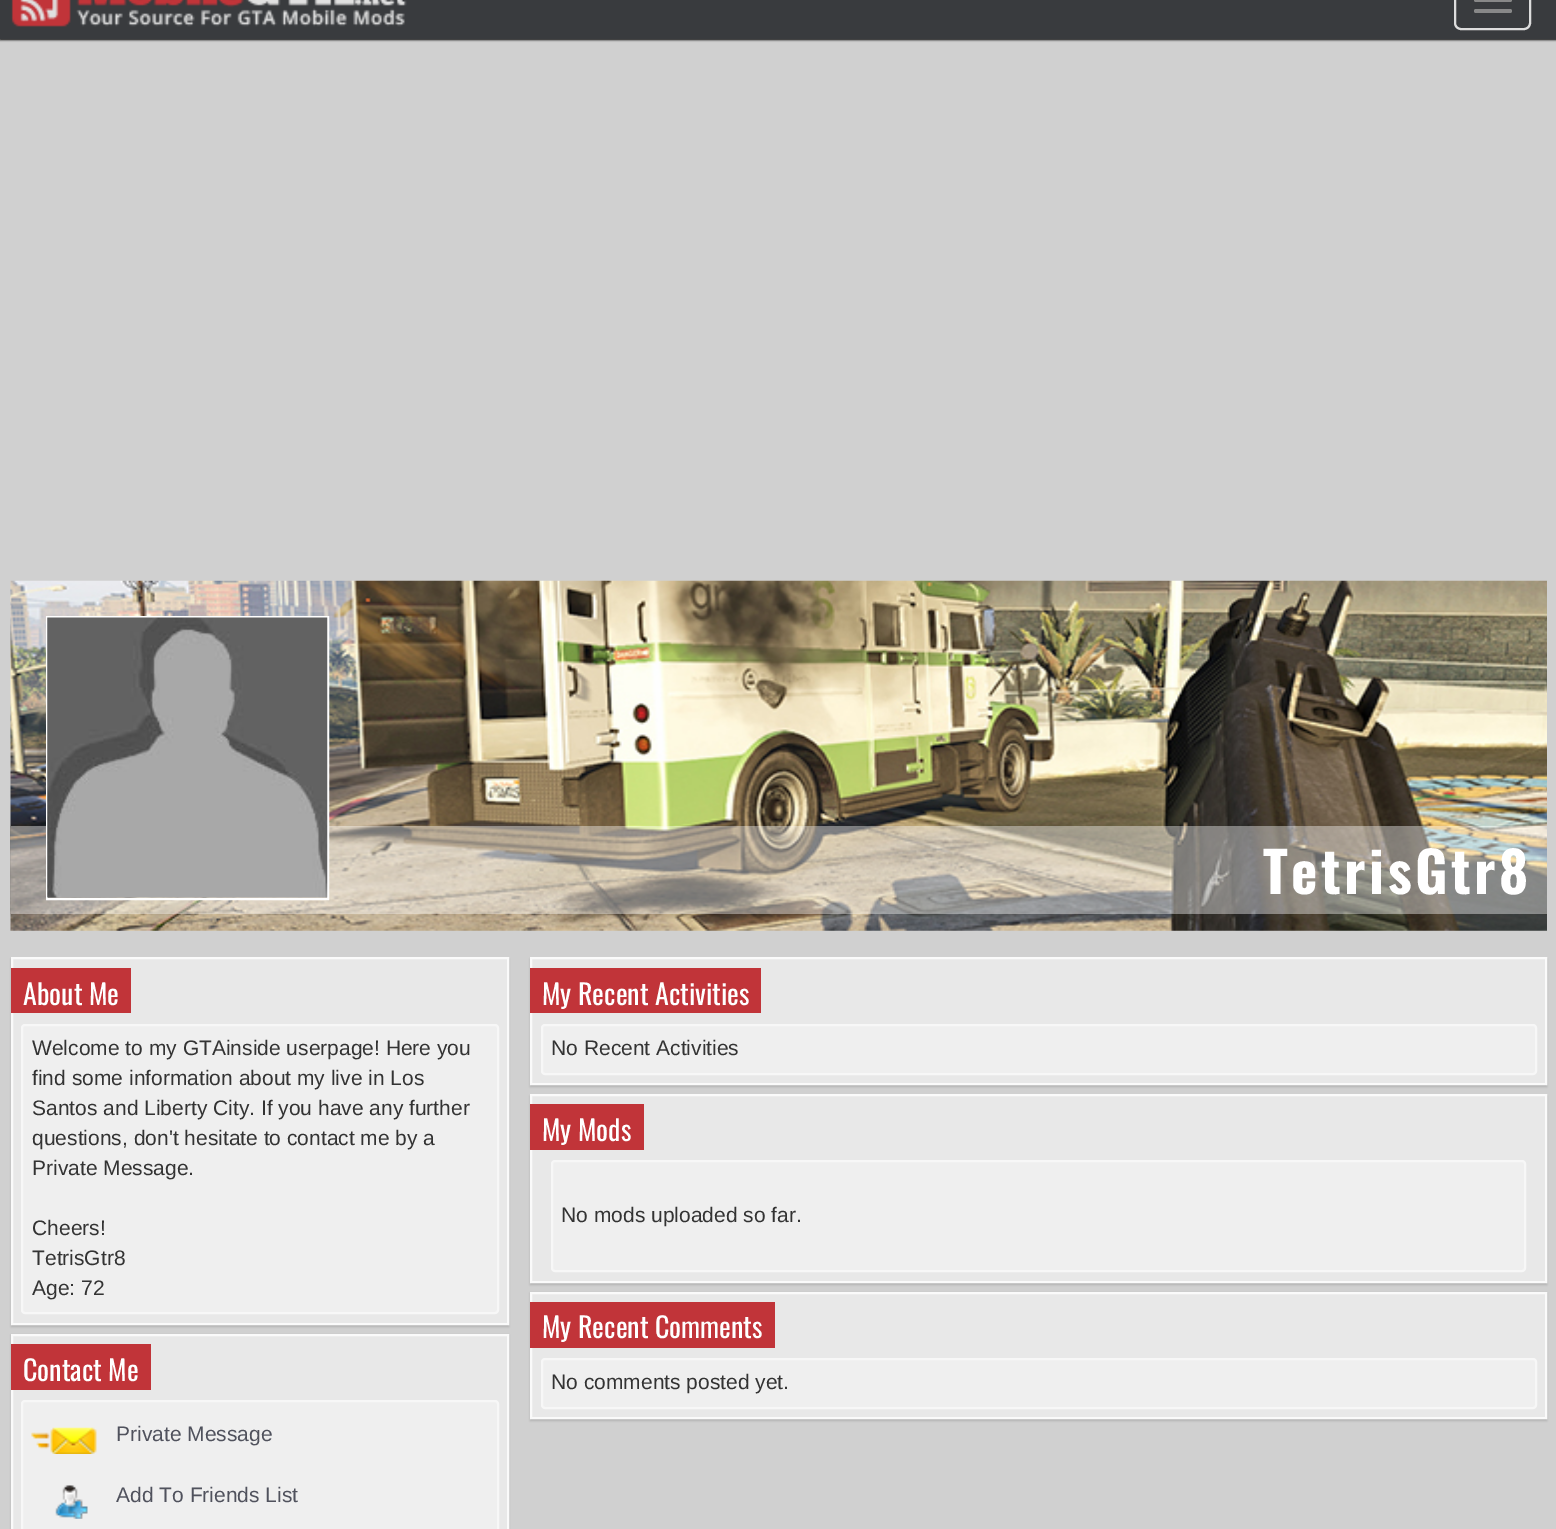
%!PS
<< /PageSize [1556 1529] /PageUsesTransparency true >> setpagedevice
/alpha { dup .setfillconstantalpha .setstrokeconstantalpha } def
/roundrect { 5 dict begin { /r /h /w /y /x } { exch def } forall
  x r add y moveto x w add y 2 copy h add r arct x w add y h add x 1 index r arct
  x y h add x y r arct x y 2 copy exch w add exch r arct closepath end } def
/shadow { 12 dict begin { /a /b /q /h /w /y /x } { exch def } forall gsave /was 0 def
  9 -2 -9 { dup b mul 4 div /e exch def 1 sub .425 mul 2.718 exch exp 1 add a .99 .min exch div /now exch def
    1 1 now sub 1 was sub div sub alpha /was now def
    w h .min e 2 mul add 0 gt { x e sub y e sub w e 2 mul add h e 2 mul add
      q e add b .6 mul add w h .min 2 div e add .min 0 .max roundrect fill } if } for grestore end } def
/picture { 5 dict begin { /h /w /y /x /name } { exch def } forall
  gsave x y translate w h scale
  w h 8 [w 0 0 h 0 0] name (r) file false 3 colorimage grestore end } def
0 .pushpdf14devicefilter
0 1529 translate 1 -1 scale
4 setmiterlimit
0.816 setgray
0 0 1556 1529 rectfill
0 setgray
0 -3 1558 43 0 1 1 shadow
0.224 0.231 0.243 setrgbcolor
0 0 1556 39 rectfill
(img1.rgb) 11 0 396 27 picture
0.867 setgray
2 setlinewidth
1455 -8 75 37 6 roundrect stroke
0.533 setgray
1474 -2 38 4 2 roundrect fill
1474 9 38 4 2 roundrect fill
(img2.rgb) 10 580 1537 351 picture
0.4 alpha
1 setgray
11 826 1536 88 rectfill
1 alpha
47 617 281 282 rectstroke
(img3.rgb) 47 617 281 281 picture
/Oswald-Bold [56 0 0 -56 0 0] selectfont
1263 894 moveto 3.5 0 (TetrisGtr8) ashow
0.694 setgray
11 959 498 368 0 1 1 shadow
0.91 setgray
newpath 12 958 moveto 508 958 lineto 508 1324 lineto 12 1324 lineto closepath gsave fill grestore
0.98 setgray
stroke
0.757 0.204 0.224 setrgbcolor
11 968 120 45 rectfill
/Oswald-Regular [28 0 0 -28 0 0] selectfont
1 setgray
23 1005 moveto (About Me) show
0.937 setgray
22 1025 476 288 3 roundrect gsave fill grestore
0.969 setgray
stroke
/LiberationSans-Regular [21 0 0 -21 0 0] selectfont
0.2 setgray
32 1055 moveto (Welcome to my GTAinside userpage! Here you) show
32 1085 moveto (find some information about my live in Los) show
32 1115 moveto (Santos and Liberty City. If you have any further) show
32 1145 moveto (questions, don't hesitate to contact me by a) show
32 1175 moveto (Private Message.) show
32 1235 moveto (Cheers!) show
32 1265 moveto (TetrisGtr8) show
32 1295 moveto (Age: 72) show
0.694 setgray
11 1335 498 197 0 1 1 shadow
0.91 setgray
newpath 12 1335 moveto 508 1335 lineto 508 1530 lineto 12 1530 lineto closepath gsave fill grestore
0.98 setgray
stroke
0.757 0.204 0.224 setrgbcolor
11 1344 140 46 rectfill
/Oswald-Regular [28 0 0 -28 0 0] selectfont
1 setgray
23 1381 moveto (Contact Me) show
0.937 setgray
22 1401 476 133 3 roundrect gsave fill grestore
0.969 setgray
stroke
(img4.rgb) 31 1427 66 27 picture
/LiberationSans-Regular [21 0 0 -21 0 0] selectfont
0.314 0.322 0.365 setrgbcolor
116 1441 moveto (Private Message) show
(img5.rgb) 55 1485 33 34 picture
116 1502 moveto (Add To Friends List) show
0.694 setgray
530 959 1017 128 0 1 1 shadow
0.91 setgray
newpath 531 958 moveto 1546 958 lineto 1546 1084 lineto 531 1084 lineto closepath gsave fill grestore
0.98 setgray
stroke
0.757 0.204 0.224 setrgbcolor
530 968 231 45 rectfill
/Oswald-Regular [28 0 0 -28 0 0] selectfont
1 setgray
542 1005 moveto (My Recent Activities) show
0.937 setgray
542 1025 994 49 3 roundrect gsave fill grestore
0.969 setgray
stroke
/LiberationSans-Regular [21 0 0 -21 0 0] selectfont
0.2 setgray
551 1055 moveto (No Recent Activities) show
0.694 setgray
530 1096 1017 189 0 1 1 shadow
0.91 setgray
newpath 531 1095 moveto 1546 1095 lineto 1546 1282 lineto 531 1282 lineto closepath gsave fill grestore
0.98 setgray
stroke
0.757 0.204 0.224 setrgbcolor
530 1104 114 46 rectfill
/Oswald-Regular [28 0 0 -28 0 0] selectfont
1 setgray
542 1141 moveto (My Mods) show
0.937 setgray
552 1161 973 110 3 roundrect gsave fill grestore
0.969 setgray
stroke
/LiberationSans-Regular [21 0 0 -21 0 0] selectfont
0.2 setgray
561 1222 moveto (No mods uploaded so far.) show
0.694 setgray
530 1293 1017 128 0 1 1 shadow
0.91 setgray
newpath 531 1293 moveto 1546 1293 lineto 1546 1418 lineto 531 1418 lineto closepath gsave fill grestore
0.98 setgray
stroke
0.757 0.204 0.224 setrgbcolor
530 1302 245 46 rectfill
/Oswald-Regular [28 0 0 -28 0 0] selectfont
1 setgray
542 1338 moveto (My Recent Comments) show
0.937 setgray
542 1359 994 49 3 roundrect gsave fill grestore
0.969 setgray
stroke
/LiberationSans-Regular [21 0 0 -21 0 0] selectfont
0.2 setgray
551 1389 moveto (No comments posted yet.) show
.poppdf14devicefilter showpage
